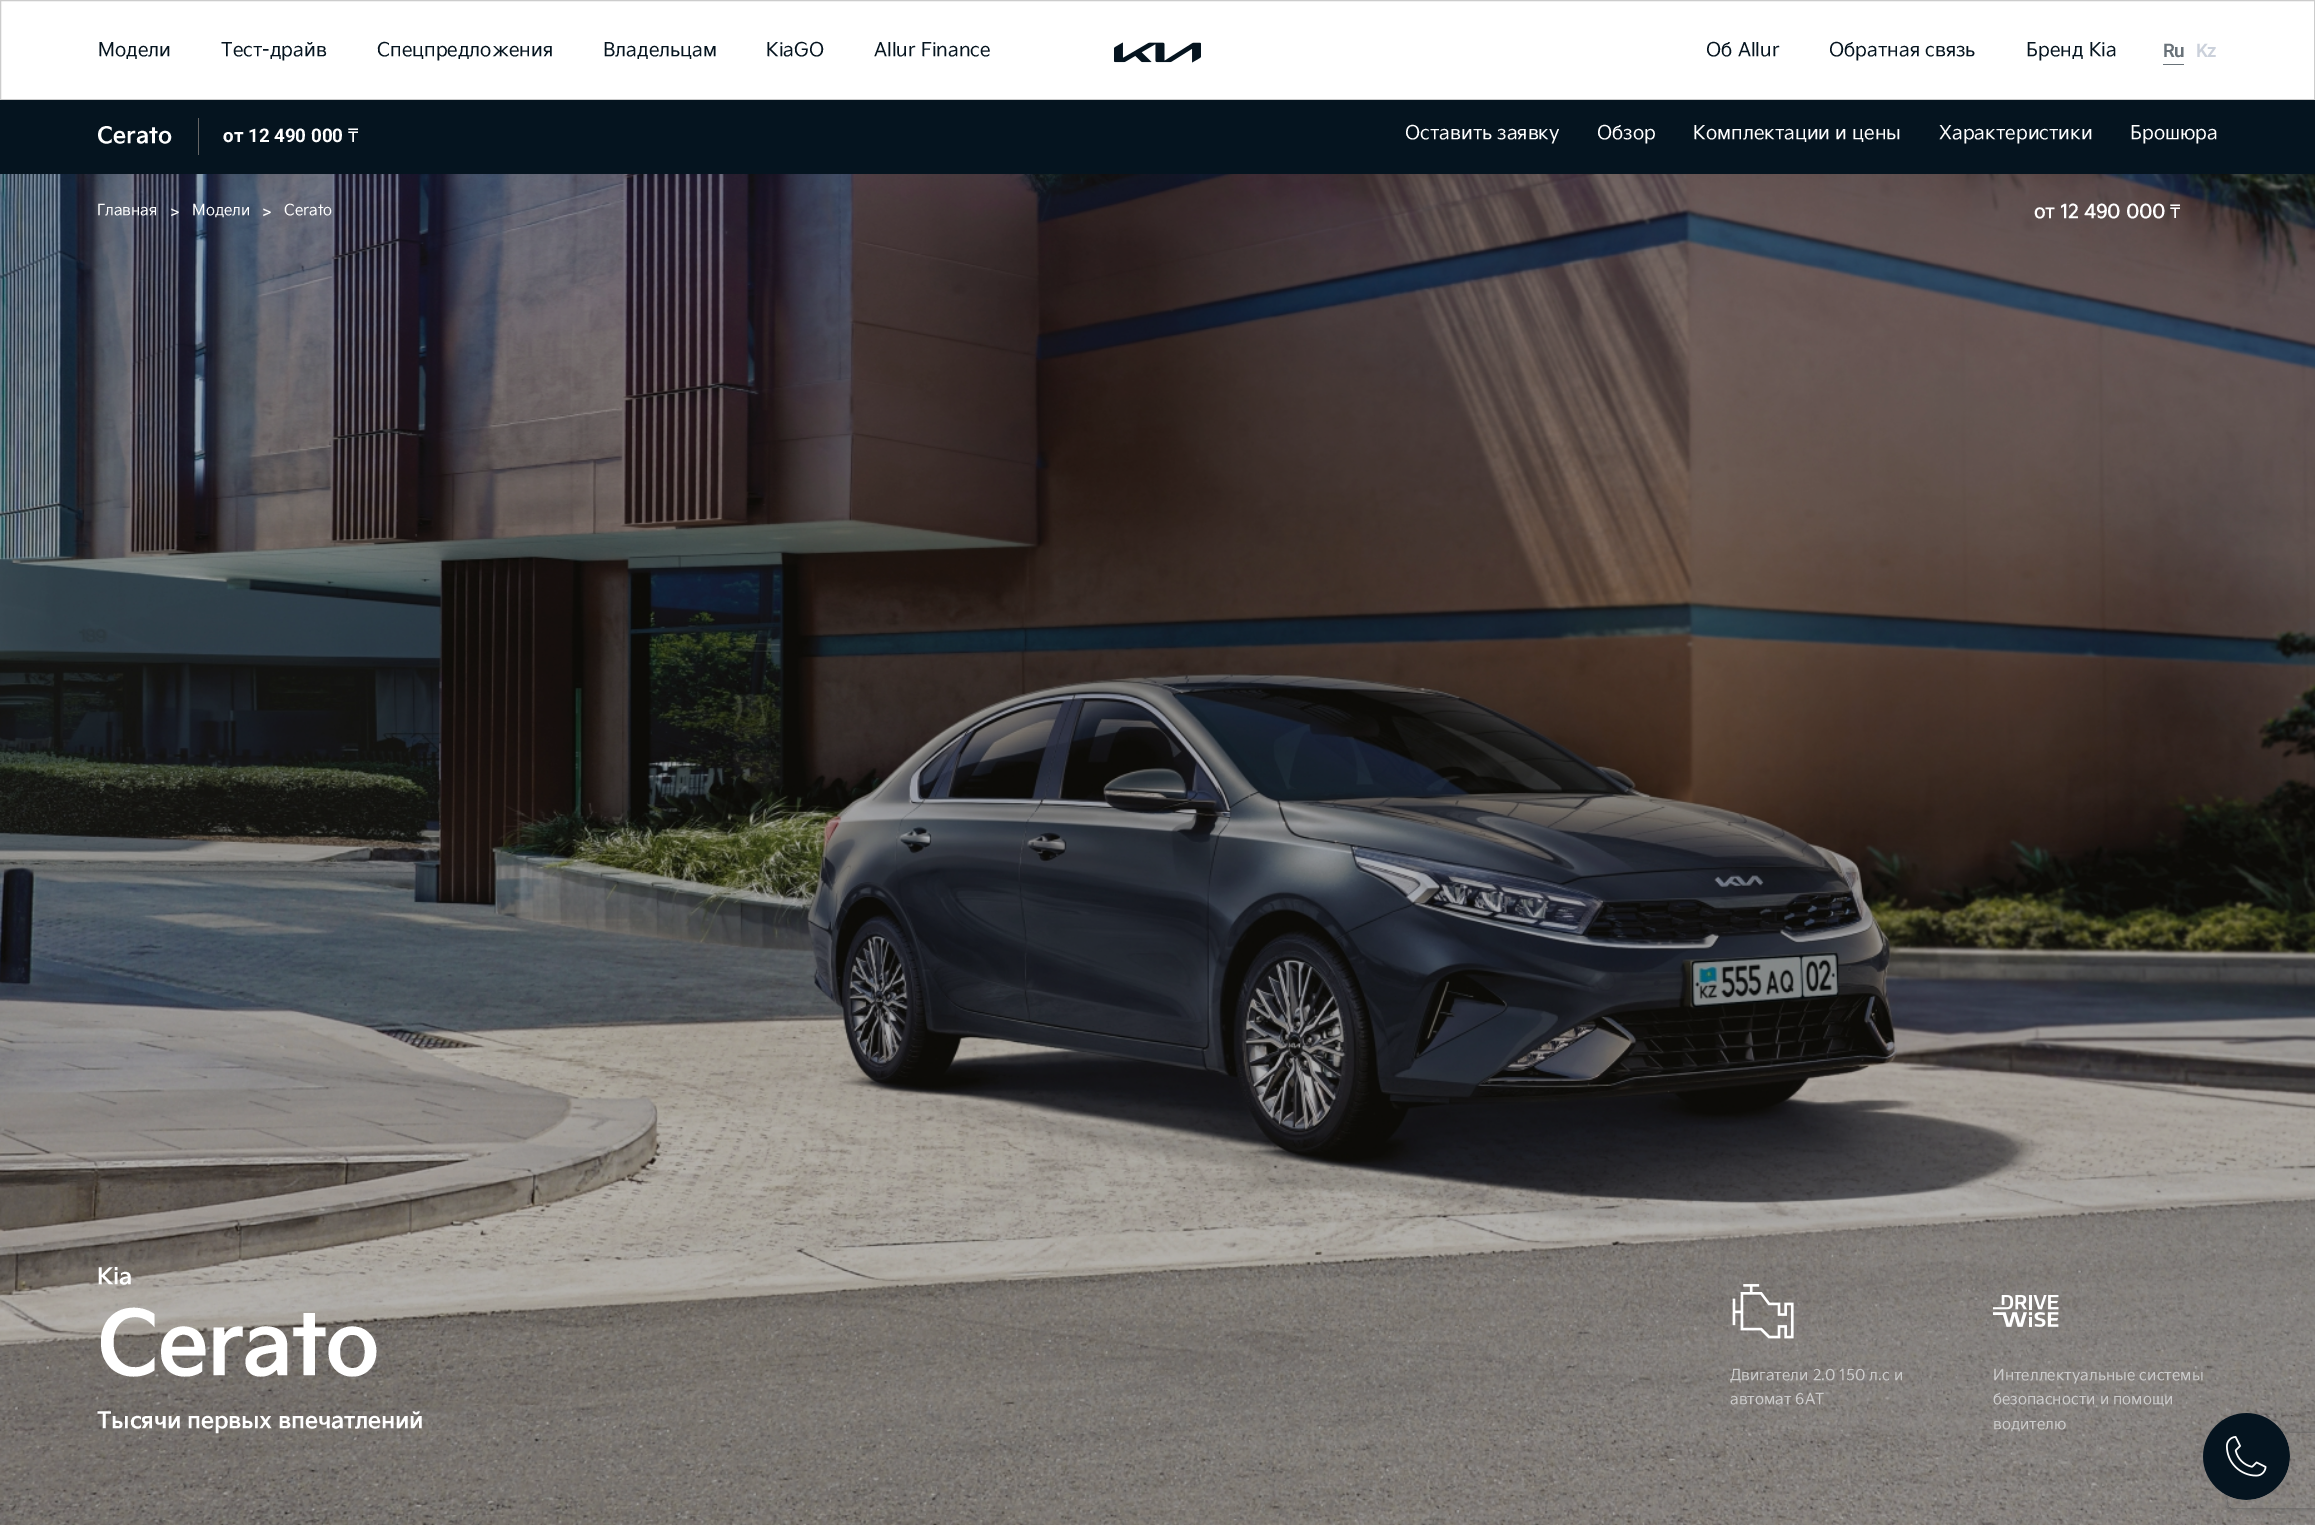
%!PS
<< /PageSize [2315 1525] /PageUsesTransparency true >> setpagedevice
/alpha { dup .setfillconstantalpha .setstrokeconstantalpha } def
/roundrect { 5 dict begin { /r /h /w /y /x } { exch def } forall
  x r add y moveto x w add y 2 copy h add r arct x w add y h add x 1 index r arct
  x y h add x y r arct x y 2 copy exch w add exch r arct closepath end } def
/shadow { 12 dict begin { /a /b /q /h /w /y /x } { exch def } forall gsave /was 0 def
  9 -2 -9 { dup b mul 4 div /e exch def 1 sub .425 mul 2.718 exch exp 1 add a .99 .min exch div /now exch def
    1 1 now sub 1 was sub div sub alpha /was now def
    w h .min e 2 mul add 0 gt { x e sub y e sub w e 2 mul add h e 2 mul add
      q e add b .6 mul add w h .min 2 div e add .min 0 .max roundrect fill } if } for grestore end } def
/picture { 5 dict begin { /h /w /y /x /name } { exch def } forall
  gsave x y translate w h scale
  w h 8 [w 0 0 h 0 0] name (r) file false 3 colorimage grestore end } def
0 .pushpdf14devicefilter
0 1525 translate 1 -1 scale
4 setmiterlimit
1 setgray
0 0 2315 1525 rectfill
0.8 setgray
0.5 0.5 2314 99 rectstroke
/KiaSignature-Regular [18.75 0 0 -18.75 0 0] selectfont
0.02 0.078 0.122 setrgbcolor
98 56 moveto (Модели) show
221 56 moveto (Тест-драйв) show
377 56 moveto (Спецпредложения) show
603 56 moveto (Владельцам) show
766 56 moveto (KiaGO) show
874 56 moveto (Allur Finance) show
1706 56 moveto (Об Allur) show
1829 56 moveto (Обратная связь) show
2026 56 moveto (Бренд Kia) show
/Roboto-SemiBold [18.75 0 0 -18.75 0 0] selectfont
0.412 0.447 0.475 setrgbcolor
2163 57 moveto -1 0 (Ru) ashow
2163 64 21 1 rectfill
0.796 0.82 0.859 setrgbcolor
2196 57 moveto -1 0 (Kz) ashow
(img1.rgb) 1114 42 87 21 picture
0.02 0.078 0.122 setrgbcolor
0 100 2315 74 rectfill
/KiaSignature-Bold [22.5 0 0 -22.5 0 0] selectfont
1 setgray
97 143 moveto (Cerato) show
0.4 setgray
198 118 1 37 rectfill
/Roboto-Bold [18.75 0 0 -18.75 0 0] selectfont
1 setgray
223 142 moveto (от 12 490 000) show
/NotoSans-Regular [18.75 0 0 -18.75 0 0] selectfont
348 142 moveto (₸) show
/KiaSignature-Regular [18.75 0 0 -18.75 0 0] selectfont
1405 139 moveto (Оставить заявку) show
1597 139 moveto (Обзор) show
1693 139 moveto (Комплектации и цены) show
1939 139 moveto (Характеристики) show
2130 139 moveto (Брошюра) show
(img2.rgb) 0 174 2315 1351 picture
/KiaSignature-Regular [15 0 0 -15 0 0] selectfont
97 215 moveto (Главная) show
/Roboto-Regular [18 0 0 -18 0 0] selectfont
170 218 moveto (>) show
/KiaSignature-Regular [15 0 0 -15 0 0] selectfont
192 215 moveto (Модели) show
/Roboto-Regular [18 0 0 -18 0 0] selectfont
262 218 moveto (>) show
/KiaSignature-Regular [15 0 0 -15 0 0] selectfont
284 215 moveto (Cerato) show
/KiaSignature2-Bold [18.75 0 0 -18.75 0 0] selectfont
2034 218 moveto (от 12 490 000) show
/NotoSans-Regular [18.75 0 0 -18.75 0 0] selectfont
2170 218 moveto (₸) show
/KiaSignature-Bold [22.5 0 0 -22.5 0 0] selectfont
97 1284 moveto -0.25 0 (Kia) ashow
/KiaSignature-Bold [87.5 0 0 -87.5 0 0] selectfont
97 1374 moveto -1.75 0 (Cerato) ashow
/KiaSignature-Bold [22.5 0 0 -22.5 0 0] selectfont
97 1428 moveto -0.25 0 (Тысячи первых впечатлений) ashow
(img3.rgb) 1732 1284 62 55 picture
/KiaSignature-Regular [15 0 0 -15 0 0] selectfont
0.8 setgray
1730 1380 moveto (Двигатели 2.0 150 л.с и) show
1730 1404 moveto (автомат 6AT) show
(img4.rgb) 1993 1295 66 32 picture
1993 1380 moveto (Интеллектуальные системы) show
1993 1404 moveto (безопасности и помощи) show
1993 1429 moveto (водителю) show
gsave
newpath 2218 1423 moveto 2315 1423 lineto 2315 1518 lineto 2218 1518 lineto closepath 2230.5 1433 moveto 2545.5 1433 lineto 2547 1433 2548 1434 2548 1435.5 curveto 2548 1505.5 lineto 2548 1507 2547 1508 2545.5 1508 curveto 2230.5 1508 lineto 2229 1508 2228 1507 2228 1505.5 curveto 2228 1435.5 lineto 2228 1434 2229 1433 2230.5 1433 curveto closepath eoclip newpath
0.353 setgray
2228 1433 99 75 2.5 3 1 shadow
grestore
(img5.rgb) 2203 1413 87 87 picture
.poppdf14devicefilter showpage
